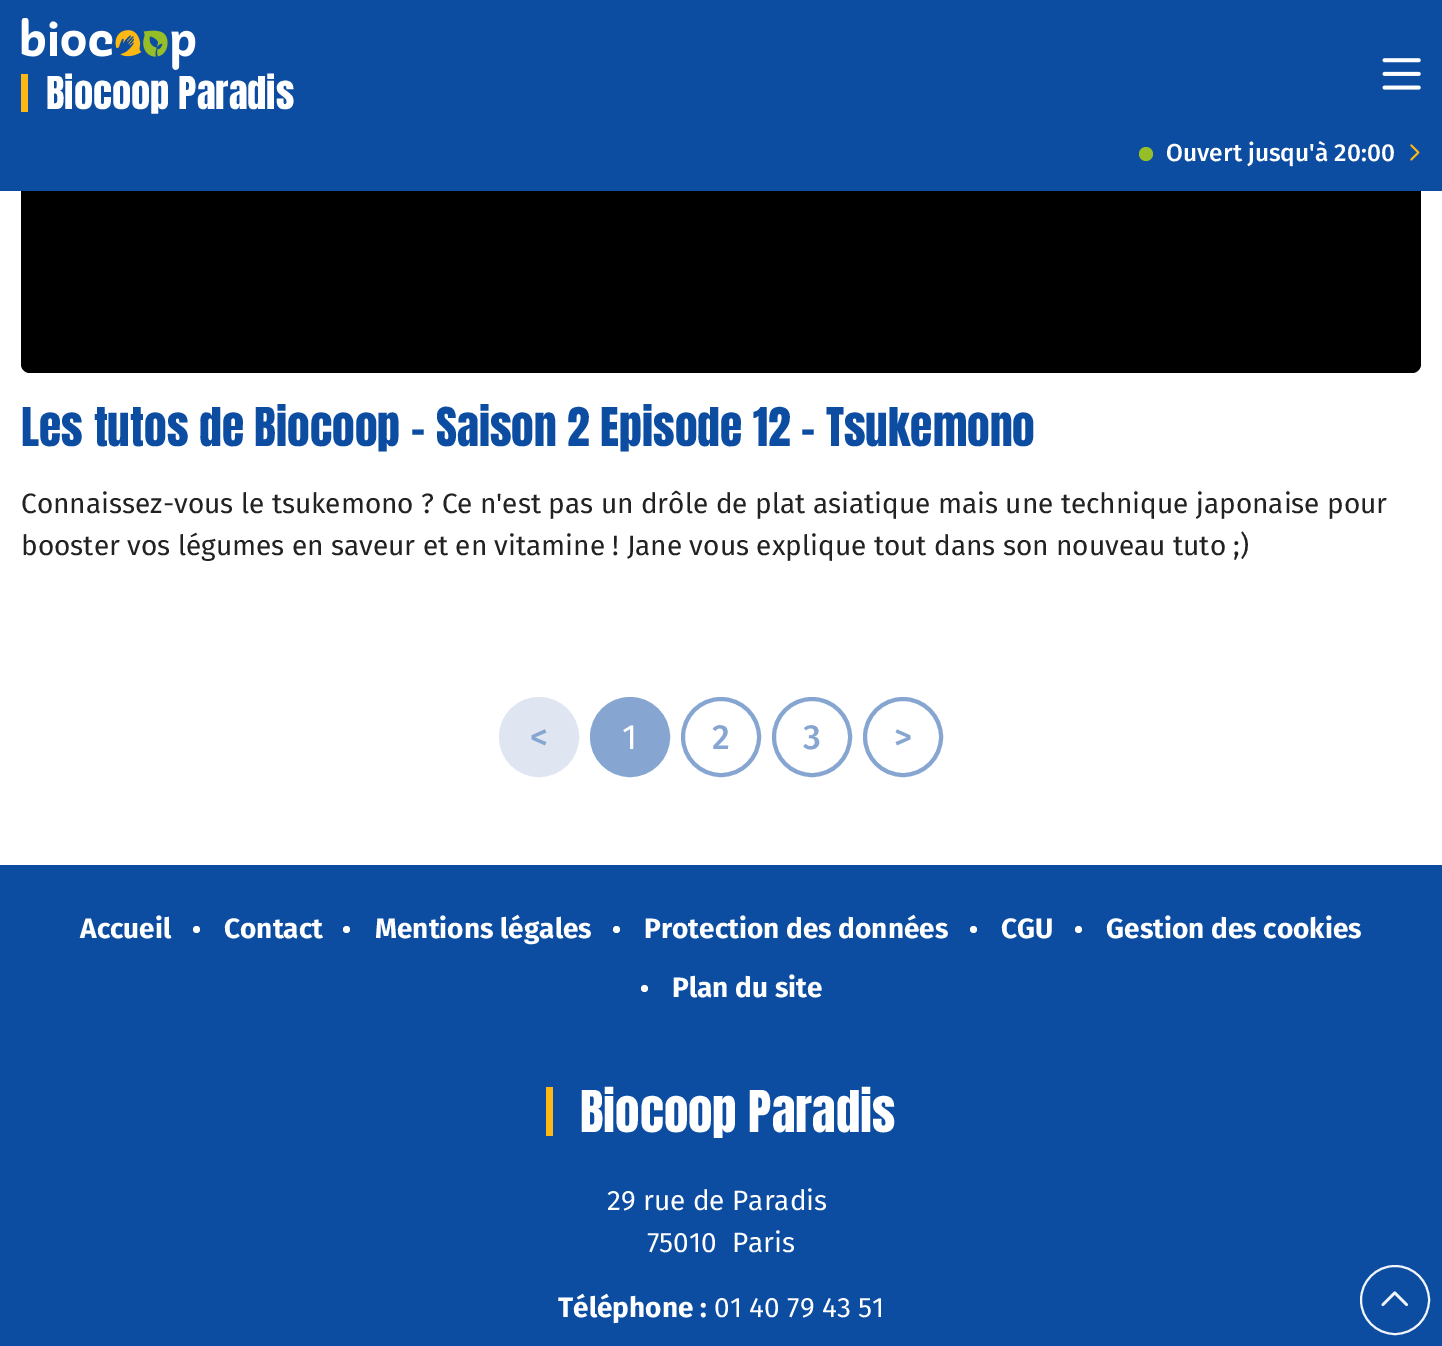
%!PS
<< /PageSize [1442 1346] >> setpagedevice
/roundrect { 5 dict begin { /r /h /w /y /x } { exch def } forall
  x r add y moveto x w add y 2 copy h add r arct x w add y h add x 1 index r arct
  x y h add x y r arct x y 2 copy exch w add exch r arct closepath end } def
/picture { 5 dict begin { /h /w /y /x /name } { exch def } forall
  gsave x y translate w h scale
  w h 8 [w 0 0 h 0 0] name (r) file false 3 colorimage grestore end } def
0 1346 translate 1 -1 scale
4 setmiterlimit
1 setgray
0 0 1442 1346 rectfill
0 setgray
21 -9 1400 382 9 roundrect fill
0.047 0.302 0.635 setrgbcolor
0 0 1442 191 rectfill
(img1.rgb) 21 18 175 52 picture
0.992 0.722 0.075 setrgbcolor
21 74 7 38 rectfill
/Anton-Regular [38.5 0 0 -38.5 0 0] selectfont
1 setgray
46 109 moveto (Biocoop Paradis) show
(img2.rgb) 1382 58 39 32 picture
0.588 0.745 0.157 setrgbcolor
newpath 1146 154 7 0 360 arc closepath fill
/FiraSans-Medium [24.5 0 0 -24.5 0 0] selectfont
1 setgray
1166 161 moveto (Ouvert jusqu'à 20:00) show
(img3.rgb) 1410 144 10 17 picture
0.047 0.302 0.635 setrgbcolor
0 865 1442 481 rectfill
0.945 0.961 0.98 setrgbcolor
2 setlinewidth
newpath 1395 1300 34 0 360 arc closepath stroke
(img4.rgb) 1381 1291 27 16 picture
/Anton-Regular [45.5 0 0 -45.5 0 0] selectfont
0.047 0.302 0.635 setrgbcolor
21 446 moveto (Les tutos de Biocoop - Saison 2 Episode 12 - Tsukemono) show
/FiraSans-Regular [28 0 0 -28 0 0] selectfont
0.133 setgray
21 513 moveto (Connaissez-vous le tsukemono ? Ce n'est pas un drôle de plat asiatique mais une technique japonaise pour) show
21 555 moveto (booster vos légumes en saveur et en vitamine ! Jane vous explique tout dans son nouveau tuto ;\)) show
0.875 0.898 0.945 setrgbcolor
newpath 539 737 38 0 360 arc closepath gsave fill grestore
4 setlinewidth
stroke
/FiraSans-Medium [35 0 0 -35 0 0] selectfont
0.525 0.651 0.82 setrgbcolor
530 749 moveto (<) show
newpath 630 737 38 0 360 arc closepath gsave fill grestore
stroke
/FiraSans-Regular [35 0 0 -35 0 0] selectfont
1 setgray
622 749 moveto (1) show
0.525 0.651 0.82 setrgbcolor
newpath 721 737 38 0 360 arc closepath stroke
/FiraSans-Medium [35 0 0 -35 0 0] selectfont
712 749 moveto (2) show
newpath 812 737 38 0 360 arc closepath stroke
803 749 moveto (3) show
newpath 903 737 38 0 360 arc closepath stroke
894 749 moveto (>) show
/FiraSans-Bold [28 0 0 -28 0 0] selectfont
1 setgray
80 938 moveto (Accueil) show
newpath 196.5 929.5 3.5 0 360 arc closepath fill
224 938 moveto (Contact) show
newpath 346.5 929.5 3.5 0 360 arc closepath fill
375 938 moveto (Mentions légales) show
newpath 616.5 929.5 3.5 0 360 arc closepath fill
644 938 moveto (Protection des données) show
newpath 973.5 929.5 3.5 0 360 arc closepath fill
1001 938 moveto (CGU) show
newpath 1078.5 929.5 3.5 0 360 arc closepath fill
1106 938 moveto (Gestion des cookies) show
newpath 644.5 988.5 3.5 0 360 arc closepath fill
672 997 moveto (Plan du site) show
0.992 0.722 0.075 setrgbcolor
546 1087 7 49 rectfill
/Anton-Regular [49 0 0 -49 0 0] selectfont
1 setgray
580 1132 moveto (Biocoop Paradis) show
/FiraSans-Regular [28 0 0 -28 0 0] selectfont
607 1210 moveto (29 rue de Paradis) show
647 1252 moveto (75010  Paris) show
/FiraSans-Bold [28 0 0 -28 0 0] selectfont
558 1317 moveto (Téléphone :) show
/FiraSans-Regular [28 0 0 -28 0 0] selectfont
714 1317 moveto (01 40 79 43 51) show
showpage
